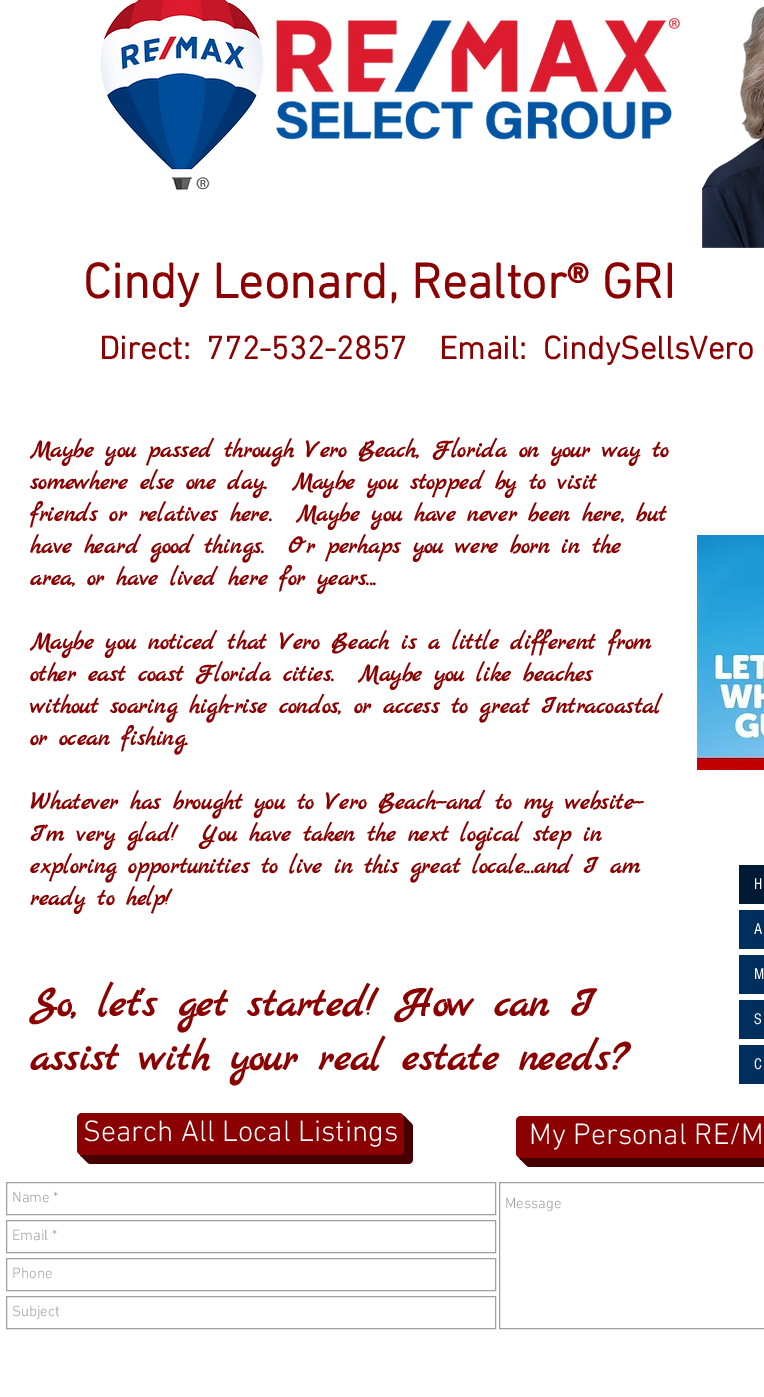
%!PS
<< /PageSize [764 1397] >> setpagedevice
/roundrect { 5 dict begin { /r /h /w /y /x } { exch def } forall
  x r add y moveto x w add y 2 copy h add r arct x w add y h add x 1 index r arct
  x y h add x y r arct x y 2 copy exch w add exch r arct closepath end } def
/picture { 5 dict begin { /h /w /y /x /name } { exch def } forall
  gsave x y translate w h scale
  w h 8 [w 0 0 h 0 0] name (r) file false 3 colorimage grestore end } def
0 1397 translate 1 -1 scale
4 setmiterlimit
1 setgray
0 0 764 1397 rectfill
(img1.rgb) 100 0 581 190 picture
(img2.rgb) 702 6 62 242 picture
/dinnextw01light-Bold [50 0 0 -50 0 0] selectfont
0.545 0 0 setrgbcolor
83 298 moveto (Cindy Leonard, Realtor® GRI) show
/dinnextw01light-Bold [33 0 0 -33 0 0] selectfont
99 359 moveto (Direct:  772-532-2857    Email:) show
543 359 moveto (CindySellsVero) show
/MarckScript-Bold [25 0 0 -25 0 0] selectfont
30 457 moveto (Maybe you passed through Vero Beach, Florida on your way to) show
30 489 moveto (somewhere else one day.  Maybe you stopped by to visit) show
30 521 moveto (friends or relatives here.  Maybe you have never been here, but) show
30 553 moveto (have heard good things.  Or perhaps you were born in the) show
30 585 moveto (area, or have lived here for years...) show
30 649 moveto (Maybe you noticed that Vero Beach is a little different from) show
30 681 moveto (other east coast Florida cities.  Maybe you like beaches) show
30 713 moveto (without soaring high-rise condos, or access to great Intracoastal) show
30 745 moveto (or ocean fishing.) show
30 809 moveto (Whatever has brought you to Vero Beach--and to my website--) show
30 841 moveto (I'm very glad!  You have taken the next logical step in) show
30 873 moveto (exploring opportunities to live in this great locale...and I am) show
30 905 moveto (ready to help!) show
/MarckScript-Bold [43 0 0 -43 0 0] selectfont
30 1016 moveto (So, let's get started! How can I) show
30 1070 moveto (assist with your real estate needs?) show
(img3.rgb) 697 535 67 235 picture
0 0.102 0.2 setrgbcolor
739 865 25 39 rectfill
/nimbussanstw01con-Regular [16 0 0 -16 0 0] selectfont
1 setgray
754 889 moveto (H) show
0 0.18 0.365 setrgbcolor
739 910 25 39 rectfill
1 setgray
754 934 moveto (A) show
0 0.18 0.365 setrgbcolor
739 955 25 39 rectfill
1 setgray
754 979 moveto (M) show
0 0.18 0.365 setrgbcolor
739 1000 25 39 rectfill
1 setgray
754 1024 moveto (S) show
0 0.18 0.365 setrgbcolor
739 1045 25 39 rectfill
1 setgray
754 1069 moveto (C) show
0.275 0 0 setrgbcolor
newpath 86 1155 moveto 86 1159 lineto 86 1162 88 1164 91 1164 curveto 408 1164 lineto 411 1164 413 1162 413 1159 curveto 413 1127 lineto 413 1124 411 1122 408 1122 curveto 404 1122 lineto 404 1150 lineto 404 1153 402 1155 399 1155 curveto closepath fill
newpath 84 1155 moveto 84 1157 lineto 84 1160 86 1162 89 1162 curveto 406 1162 lineto 409 1162 411 1160 411 1157 curveto 411 1125 lineto 411 1122 409 1120 406 1120 curveto 404 1120 lineto 404 1150 lineto 404 1153 402 1155 399 1155 curveto closepath fill
newpath 82 1155 moveto 82 1158 84 1160 87 1160 curveto 404 1160 lineto 407 1160 409 1158 409 1155 curveto 409 1123 lineto 409 1120 407 1118 404 1118 curveto 404 1150 lineto 404 1153 402 1155 399 1155 curveto closepath fill
newpath 80 1155 moveto 81 1157 83 1158 85 1158 curveto 402 1158 lineto 405 1158 407 1156 407 1153 curveto 407 1121 lineto 407 1119 406 1117 404 1116 curveto 404 1139 lineto 404 1143 406 1155 399 1155 curveto closepath fill
newpath 79 1154 moveto 80 1155 81 1156 83 1156 curveto 400 1156 lineto 403 1156 405 1154 405 1151 curveto 405 1119 lineto 405 1117 404 1116 403 1115 curveto 404 1116 404 1117 404 1118 curveto 404 1150 lineto 404 1153 402 1155 399 1155 curveto 82 1155 lineto 81 1155 80 1155 79 1154 curveto closepath fill
0.545 0 0 setrgbcolor
77 1113 327 42 5 roundrect fill
/dinnextw01light-Light [30 0 0 -30 0 0] selectfont
1 setgray
83 1141 moveto (Search All Local Listings) show
0.275 0 0 setrgbcolor
newpath 525 1158 moveto 525 1162 lineto 525 1165 527 1167 530 1167 curveto 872 1167 lineto 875 1167 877 1165 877 1162 curveto 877 1130 lineto 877 1127 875 1125 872 1125 curveto 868 1125 lineto 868 1153 lineto 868 1156 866 1158 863 1158 curveto closepath fill
newpath 523 1158 moveto 523 1160 lineto 523 1163 525 1165 528 1165 curveto 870 1165 lineto 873 1165 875 1163 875 1160 curveto 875 1128 lineto 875 1125 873 1123 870 1123 curveto 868 1123 lineto 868 1153 lineto 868 1156 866 1158 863 1158 curveto closepath fill
newpath 521 1158 moveto 521 1161 523 1163 526 1163 curveto 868 1163 lineto 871 1163 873 1161 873 1158 curveto 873 1126 lineto 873 1123 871 1121 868 1121 curveto 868 1153 lineto 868 1156 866 1158 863 1158 curveto closepath fill
newpath 519 1158 moveto 520 1160 522 1161 524 1161 curveto 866 1161 lineto 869 1161 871 1159 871 1156 curveto 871 1124 lineto 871 1122 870 1120 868 1119 curveto 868 1142 lineto 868 1146 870 1158 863 1158 curveto closepath fill
newpath 518 1157 moveto 521 1159 lineto 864 1159 lineto 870 1159 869 1152 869 1149 curveto 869 1127 lineto 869 1124 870 1120 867 1118 curveto 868 1119 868 1120 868 1121 curveto 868 1153 lineto 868 1156 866 1158 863 1158 curveto 521 1158 lineto 520 1158 519 1158 518 1157 curveto closepath fill
0.545 0 0 setrgbcolor
516 1116 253 42 5 roundrect fill
1 setgray
529 1144 moveto (My Personal RE/M) show
0.627 0.627 0.624 setrgbcolor
6.5 1182.5 489 32 rectstroke
/dinnextw01light-Light [15 0 0 -15 0 0] selectfont
12 1202 moveto (Name *) show
499.5 1182.5 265 146 rectstroke
505 1208 moveto (Message) show
6.5 1220.5 489 32 rectstroke
12 1240 moveto (Email *) show
6.5 1258.5 489 32 rectstroke
12 1278 moveto (Phone) show
6.5 1296.5 489 32 rectstroke
12 1316 moveto (Subject) show
showpage
